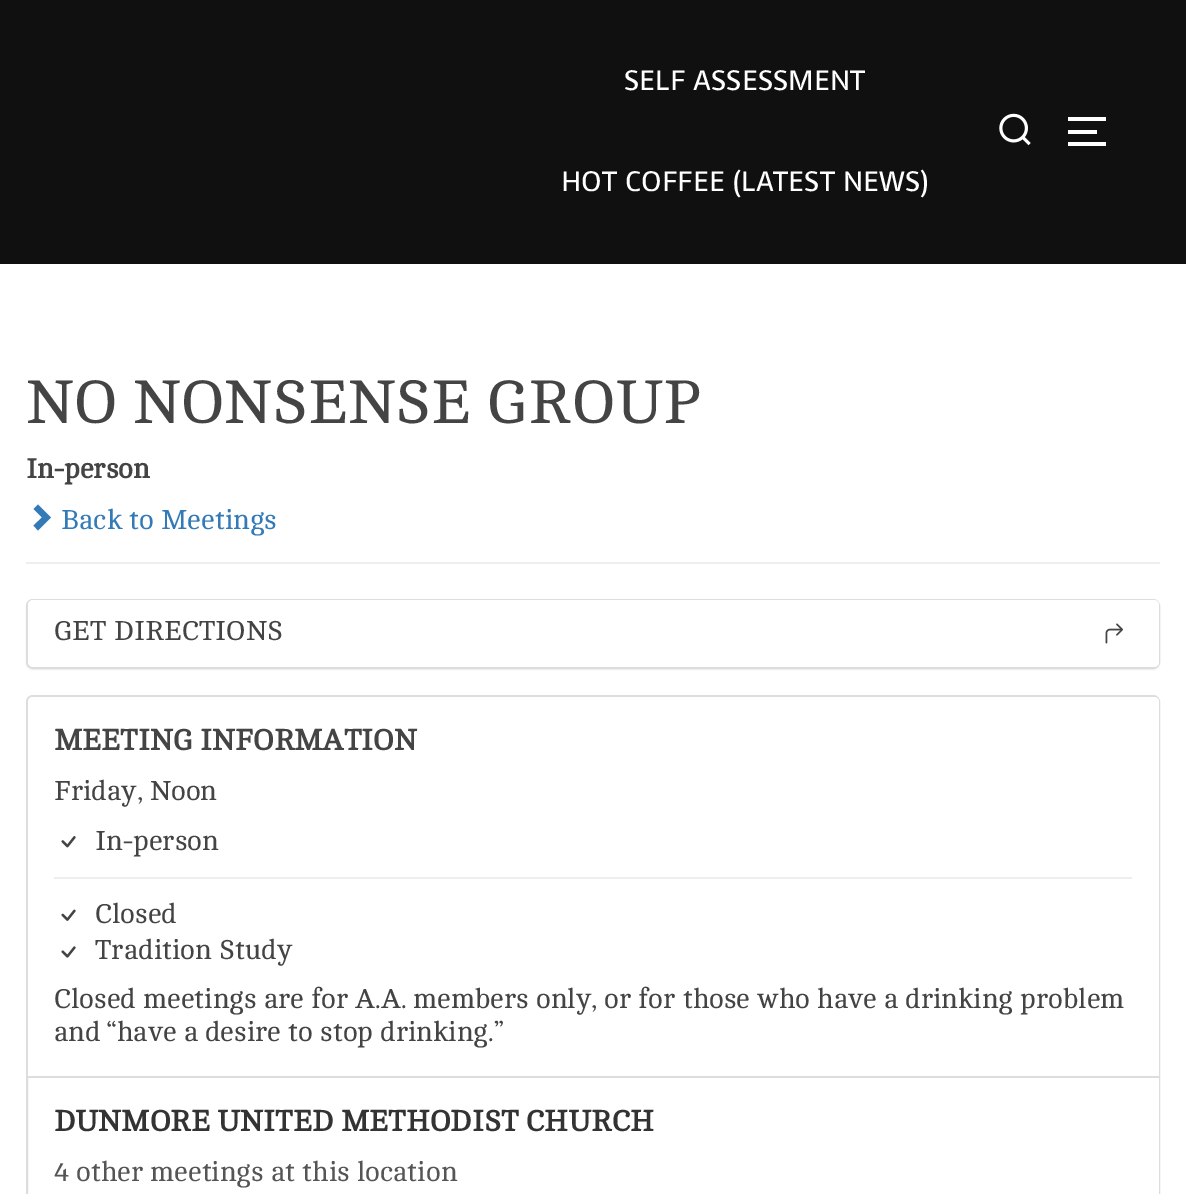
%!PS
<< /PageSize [1186 1194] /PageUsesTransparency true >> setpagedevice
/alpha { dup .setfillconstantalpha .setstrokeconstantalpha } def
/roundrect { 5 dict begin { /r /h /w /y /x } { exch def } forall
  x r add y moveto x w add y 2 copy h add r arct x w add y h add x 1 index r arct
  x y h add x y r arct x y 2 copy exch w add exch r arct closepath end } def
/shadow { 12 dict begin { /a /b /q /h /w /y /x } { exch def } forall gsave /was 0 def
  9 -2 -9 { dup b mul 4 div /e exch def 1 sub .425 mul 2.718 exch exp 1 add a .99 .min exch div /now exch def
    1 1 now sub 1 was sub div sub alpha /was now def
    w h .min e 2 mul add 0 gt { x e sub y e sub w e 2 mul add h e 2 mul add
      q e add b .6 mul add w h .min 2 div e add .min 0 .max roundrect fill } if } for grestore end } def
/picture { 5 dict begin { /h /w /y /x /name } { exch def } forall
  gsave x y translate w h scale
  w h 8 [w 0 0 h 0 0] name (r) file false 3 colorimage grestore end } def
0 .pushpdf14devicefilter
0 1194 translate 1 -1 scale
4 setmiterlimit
1 setgray
0 0 1186 1194 rectfill
0.063 setgray
0 0 1186 264 rectfill
/Voces-Regular [28 0 0 -28 0 0] selectfont
1 setgray
624 90 moveto (SELF ASSESSMENT) show
561 191 moveto (HOT COFFEE \(LATEST NEWS\)) show
(img1.rgb) 999 113 32 33 picture
1068 117 38 4 rectfill
1068 130 29 4 rectfill
1068 142 38 4 rectfill
0.933 setgray
26 562 1134 2 rectfill
/Cambo-Regular [63 0 0 -63 0 0] selectfont
0.267 setgray
26 423 moveto (NO NONSENSE GROUP) show
/Cambo-Bold [28 0 0 -28 0 0] selectfont
26 478 moveto (In-person) show
0.2 0.478 0.718 setrgbcolor
newpath 51 517.5 moveto 38 530.5 lineto 33.5 525.5 lineto 42 517.5 lineto 33.5 509 lineto 38 504.5 lineto closepath fill
/Cambo-Regular [28 0 0 -28 0 0] selectfont
61 529 moveto (Back to Meetings) show
0 setgray
26 600 1134 70 7 1 0.05 shadow
0.867 setgray
2 setlinewidth
27 600 1132 68 6 roundrect stroke
1 setgray
28 600 1131 67 5 roundrect fill
0.267 setgray
54 640 moveto (GET DIRECTIONS) show
(img2.rgb) 1105 623 18 21 picture
0.867 setgray
27 696 1132 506 6 roundrect stroke
1 setgray
newpath 33 697 moveto 1154 697 lineto 1157 697 1159 699 1159 702 curveto 1159 1078 lineto 28 1078 lineto 28 702 lineto 28 699 30 697 33 697 curveto closepath fill
0.867 setgray
28 1076 1131 2 rectfill
/Cambo-Bold [30 0 0 -30 0 0] selectfont
0.267 setgray
54 750 moveto (MEETING INFORMATION) show
/Cambo-Regular [28 0 0 -28 0 0] selectfont
54 800 moveto (Friday, Noon) show
(img3.rgb) 61 836 15 12 picture
95 850 moveto (In-person) show
0.933 setgray
54 877 1078 2 rectfill
(img4.rgb) 61 909 15 12 picture
0.267 setgray
95 923 moveto (Closed) show
(img5.rgb) 61 946 15 12 picture
95 959 moveto (Tradition Study) show
54 1008 moveto (Closed meetings are for A.A. members only, or for those who have a drinking problem) show
54 1041 moveto (and “have a desire to stop drinking.”) show
1 setgray
1158 1078 1 116 rectfill
/Cambo-Bold [30 0 0 -30 0 0] selectfont
0.2 setgray
54 1131 moveto (DUNMORE UNITED METHODIST CHURCH) show
/Cambo-Regular [28 0 0 -28 0 0] selectfont
0.333 setgray
54 1181 moveto (4 other meetings at this location) show
.poppdf14devicefilter showpage
